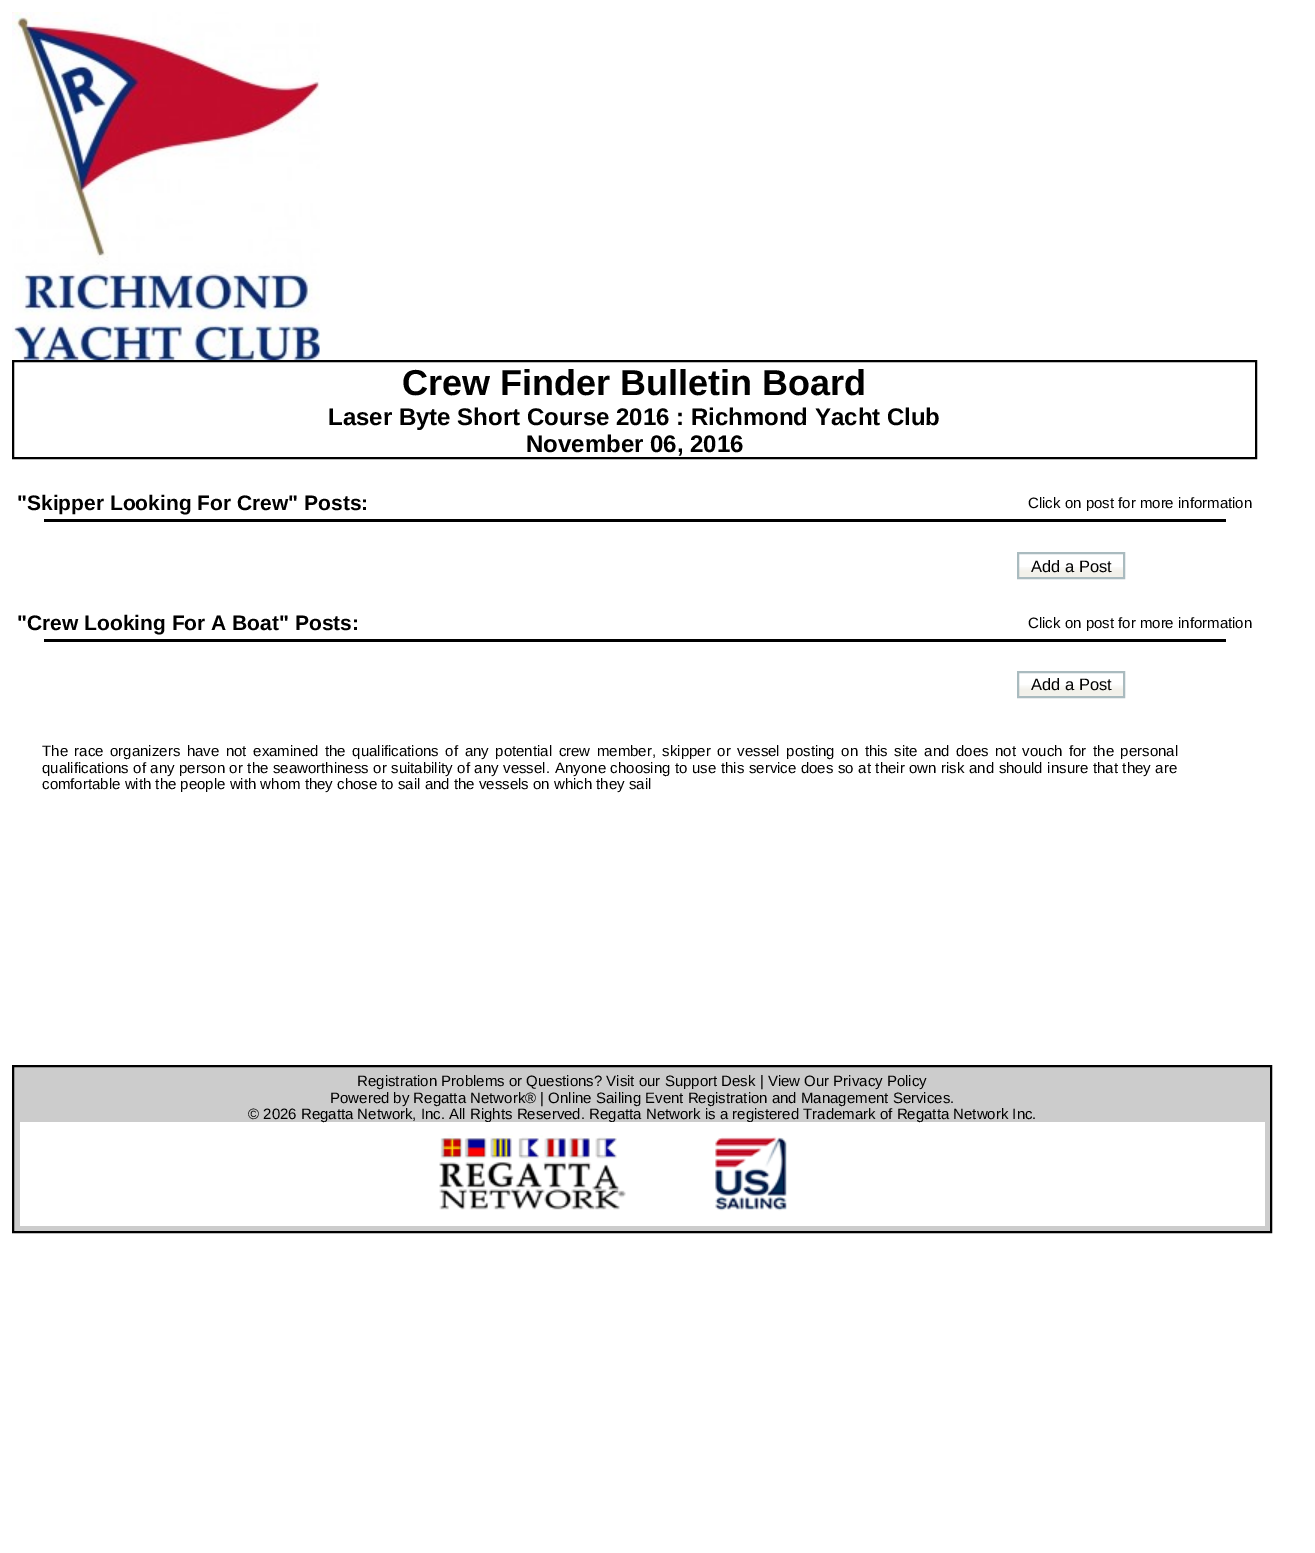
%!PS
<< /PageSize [1315 1553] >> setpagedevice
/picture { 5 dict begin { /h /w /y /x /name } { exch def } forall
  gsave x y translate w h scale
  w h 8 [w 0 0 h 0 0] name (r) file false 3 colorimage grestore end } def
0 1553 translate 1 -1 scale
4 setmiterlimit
1 setgray
0 0 1315 1553 rectfill
(img1.rgb) 12 12 308 348 picture
0 setgray
2 setlinewidth
13 361 1243 97 rectstroke
/LiberationSans-Bold [36 0 0 -36 0 0] selectfont
402 395 moveto (Crew Finder Bulletin Board) show
/LiberationSans-Bold [24 0 0 -24 0 0] selectfont
328 425 moveto (Laser Byte Short Course 2016 : Richmond Yacht Club) show
526 452 moveto (November 06, 2016) show
/LiberationSans-Bold [21 0 0 -21 0 0] selectfont
17 510 moveto ("Skipper Looking For Crew" Posts:) show
/LiberationSans-Regular [15 0 0 -15 0 0] selectfont
1028 508 moveto (Click on post for more information) show
44 519 1182 3 rectfill
(img2.rgb) 1019 567 104 10 picture
0.667 0.733 0.749 setrgbcolor
1018 553 106 25 rectstroke
/LiberationSans-Regular [16.5 0 0 -16.5 0 0] selectfont
0 setgray
1031 572 moveto (Add a Post) show
/LiberationSans-Bold [21 0 0 -21 0 0] selectfont
17 630 moveto ("Crew Looking For A Boat" Posts:) show
/LiberationSans-Regular [15 0 0 -15 0 0] selectfont
1028 628 moveto (Click on post for more information) show
44 639 1182 3 rectfill
(img3.rgb) 1019 685 104 11 picture
0.667 0.733 0.749 setrgbcolor
1018 672 106 25 rectstroke
/LiberationSans-Regular [16.5 0 0 -16.5 0 0] selectfont
0 setgray
1031 690 moveto (Add a Post) show
/LiberationSans-Regular [15 0 0 -15 0 0] selectfont
42 756 moveto 2.4 0 32 (The race organizers have not examined the qualifications of any potential crew member, skipper or vessel posting on this site and does not vouch for the personal) widthshow
42 773 moveto 0.4 0 32 (qualifications of any person or the seaworthiness or suitability of any vessel.) widthshow
555 773 moveto 0.4 0 32 (Anyone choosing to use this service does so at their own risk and should insure that they are) widthshow
42 789 moveto (comfortable with the people with whom they chose to sail and the vessels on which they sail) show
0.8 setgray
newpath 13 1066 moveto 1271 1066 lineto 1271 1232 lineto 13 1232 lineto closepath gsave fill grestore
0 setgray
stroke
357 1086 moveto (Registration Problems or Questions? Visit our Support Desk | View Our Privacy Policy) show
330 1103 moveto (Powered by Regatta Network® | Online Sailing Event Registration and Management Services.) show
1 setgray
20 1122 1245 104 rectfill
0 setgray
248 1119 moveto (© 2026 Regatta Network, Inc. All Rights Reserved. Regatta Network is a registered Trademark of Regatta Network Inc.) show
(img4.rgb) 439 1122 187 88 picture
(img5.rgb) 715 1122 72 89 picture
showpage
